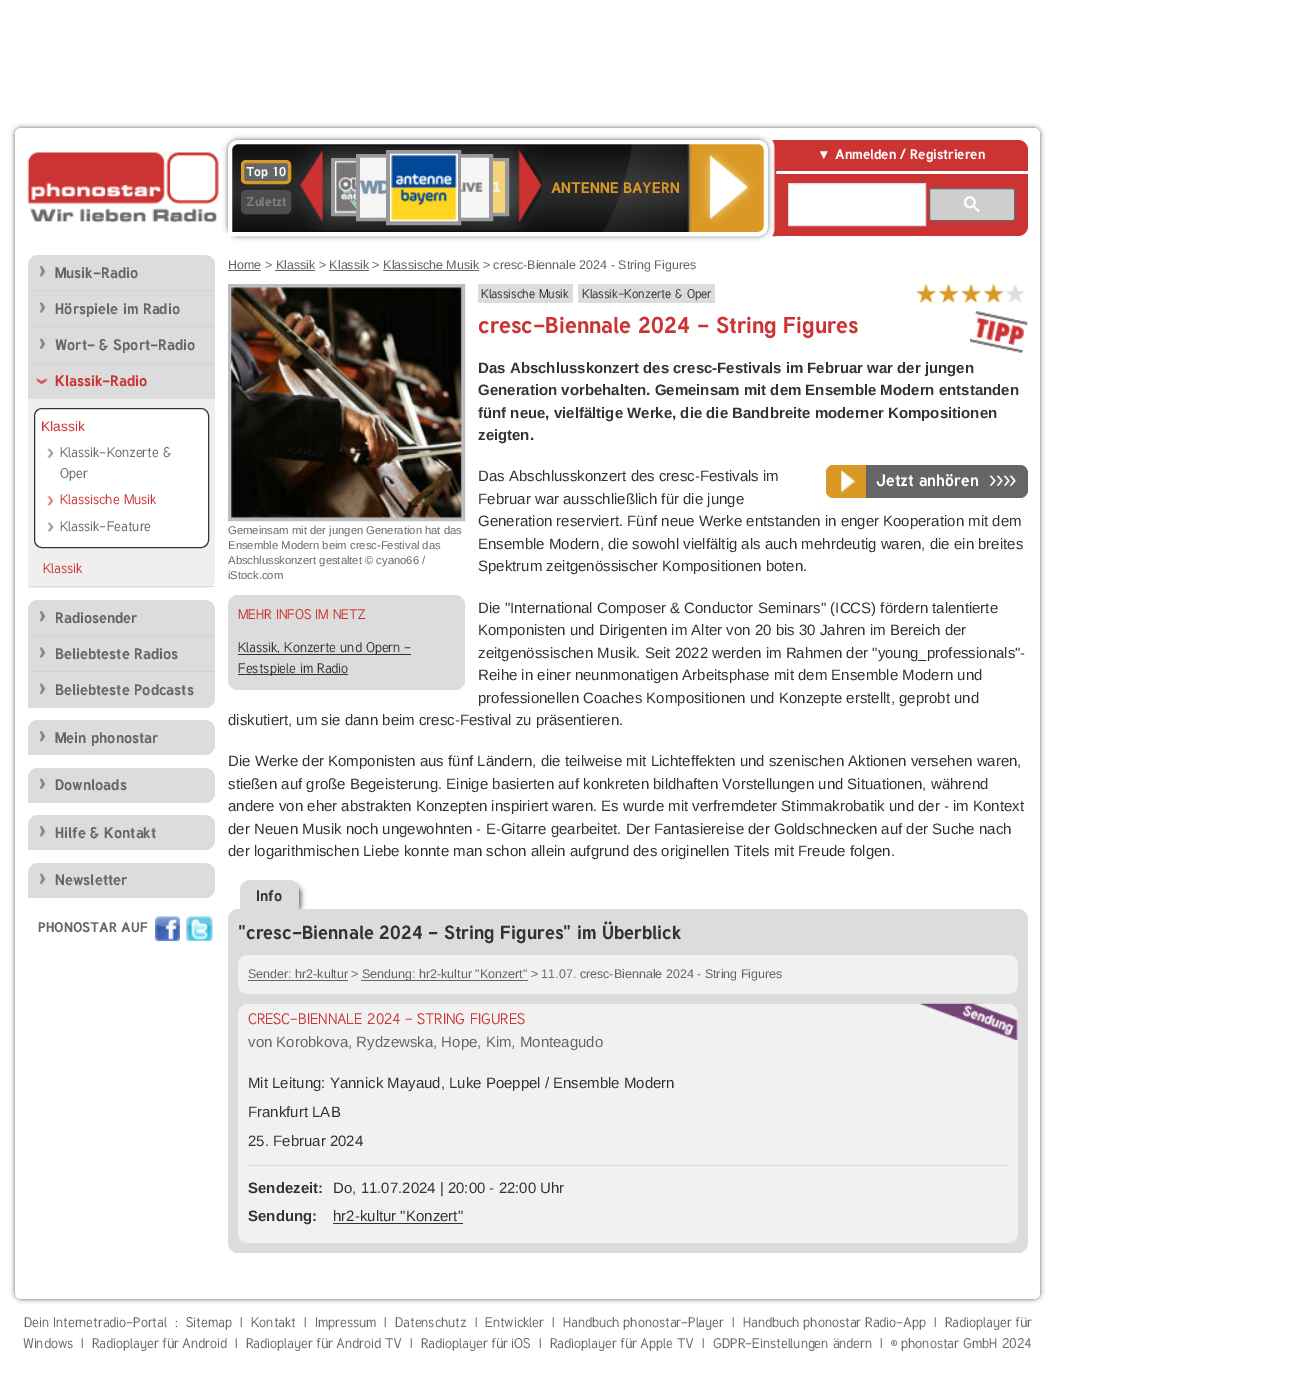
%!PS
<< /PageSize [1304 1397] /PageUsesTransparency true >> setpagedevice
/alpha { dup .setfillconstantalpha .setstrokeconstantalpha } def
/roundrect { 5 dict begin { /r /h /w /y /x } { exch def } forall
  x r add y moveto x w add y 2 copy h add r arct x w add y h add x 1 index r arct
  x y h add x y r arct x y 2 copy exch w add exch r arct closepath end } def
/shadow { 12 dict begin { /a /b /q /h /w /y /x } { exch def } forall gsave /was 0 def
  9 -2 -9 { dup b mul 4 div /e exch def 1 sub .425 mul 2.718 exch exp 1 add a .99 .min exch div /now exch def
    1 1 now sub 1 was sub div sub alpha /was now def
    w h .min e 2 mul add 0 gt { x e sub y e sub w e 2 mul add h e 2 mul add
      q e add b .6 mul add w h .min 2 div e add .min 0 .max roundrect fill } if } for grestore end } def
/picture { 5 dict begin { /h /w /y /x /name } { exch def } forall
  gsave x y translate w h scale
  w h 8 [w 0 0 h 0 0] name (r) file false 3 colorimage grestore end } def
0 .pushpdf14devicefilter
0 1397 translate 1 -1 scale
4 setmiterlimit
1 setgray
0 0 1304 1397 rectfill
0.4 setgray
15 128 1025 1171 6 2.5 1 shadow
1 setgray
15 128 1025 1171 6 roundrect fill
(img1.rgb) 27 152 192 71 picture
0.4 setgray
228 140 540 96 10 2.5 1 shadow
(img2.rgb) 231 140 533 97 picture
1 setgray
4 setlinewidth
newpath 238 142 moveto 758 142 lineto 762.5 142 766 145.5 766 150 curveto 766 226 lineto 766 230.5 762.5 234 758 234 curveto 230 234 lineto 230 150 lineto 230 145.5 233.5 142 238 142 curveto closepath stroke
0.4 setgray
242.5 161.5 47 21 3.5 roundrect gsave fill grestore
0.855 0.6 0.145 setrgbcolor
3 setlinewidth
stroke
/Tuffy-Bold [12.5 0 0 -12.5 0 0] selectfont
1 setgray
246 176 moveto (Top 10) show
0.302 setgray
242.5 191.5 47 21 3.5 roundrect gsave fill grestore
stroke
0.502 setgray
246 206 moveto (Zuletzt) show
(img3.rgb) 300 150 23 72 picture
0.863 setgray
335 162 21 50 rectfill
0.6 setgray
4 setlinewidth
333 160 55 54 rectstroke
0.863 setgray
360 158 26 59 rectfill
0.6 setgray
358 156 64 63 rectstroke
0.863 setgray
493 162 12 50 rectfill
0.6 setgray
452 160 55 54 rectstroke
0.863 setgray
461 158 28 59 rectfill
0.6 setgray
427 156 64 63 rectstroke
388 152 71 71 rectstroke
1 setgray
457 154 1 67 rectfill
(img4.rgb) 390 153 68 69 picture
0.5 alpha
360 158 26 60 rectfill
1 alpha
(img5.rgb) 360 157 26 61 picture
0.5 alpha
461 158 28 60 rectfill
1 alpha
(img6.rgb) 461 157 28 61 picture
0.5 alpha
335 161 21 52 rectfill
1 alpha
(img7.rgb) 335 161 21 52 picture
0.5 alpha
493 161 12 52 rectfill
1 alpha
(img8.rgb) 493 161 12 52 picture
(img9.rgb) 518 150 24 73 picture
/Tuffy-Bold [15 0 0 -15 0 0] selectfont
0.855 0.6 0.145 setrgbcolor
551 193 moveto (ANTENNE BAYERN) show
0.8 0.2 0.2 setrgbcolor
newpath 775 140 moveto 1018 140 lineto 1023.5 140 1028 144.5 1028 150 curveto 1028 226 lineto 1028 231.5 1023.5 236 1018 236 curveto 775 236 lineto closepath fill
1 setgray
775 171 253 3 rectfill
(img10.rgb) 772 140 5 97 picture
/LiberationSans-Regular [13.75 0 0 -13.75 0 0] selectfont
817 159 moveto (▼) show
/Tuffy-Bold [13.75 0 0 -13.75 0 0] selectfont
835 159 moveto (Anmelden / Registrieren) show
newpath 788.5 183.5 moveto 925.5 183.5 lineto 925.5 225.5 lineto 788.5 225.5 lineto closepath gsave fill grestore
0.851 setgray
1 setlinewidth
stroke
0.808 setgray
929.5 188.5 85 32 2 roundrect gsave fill grestore
0.4 setgray
stroke
(img11.rgb) 964 196 16 17 picture
0.863 setgray
newpath 38 255 moveto 205 255 lineto 210.5 255 215 259.5 215 265 curveto 215 578 lineto 215 583.5 210.5 588 205 588 curveto 28 588 lineto 28 265 lineto 28 259.5 32.5 255 38 255 curveto closepath fill
0.827 setgray
28 290 187 1 rectfill
(img12.rgb) 39 266 7 11 picture
/Tuffy-Bold [15 0 0 -15 0 0] selectfont
0.4 setgray
55 278 moveto (Musik-Radio) show
0.827 setgray
28 326 187 1 rectfill
(img13.rgb) 39 302 7 11 picture
0.4 setgray
55 314 moveto (Hörspiele im Radio) show
0.827 setgray
28 363 187 1 rectfill
(img14.rgb) 39 338 7 11 picture
0.4 setgray
55 350 moveto (Wort- & Sport-Radio) show
(img15.rgb) 36 377 12 8 picture
0.8 0.2 0.2 setrgbcolor
55 386 moveto (Klassik-Radio) show
0.937 setgray
newpath 28 399 moveto 215 399 lineto 215 578 lineto 215 583.5 210.5 588 205 588 curveto 28 588 lineto closepath fill
0.863 setgray
28 586 187 1 rectfill
1 setgray
34.5 408.5 174 139 7.5 roundrect gsave fill grestore
0.2 setgray
stroke
/LiberationSans-Regular [13.75 0 0 -13.75 0 0] selectfont
0.8 0.2 0.2 setrgbcolor
41 431 moveto (Klassik) show
(img16.rgb) 47 448 7 11 picture
/Tuffy-Regular [13.75 0 0 -13.75 0 0] selectfont
0.4 setgray
60 457 moveto (Klassik-Konzerte &) show
60 478 moveto (Oper) show
(img17.rgb) 47 496 7 10 picture
0.8 0.2 0.2 setrgbcolor
60 504 moveto (Klassische Musik) show
(img18.rgb) 47 522 7 11 picture
0.4 setgray
60 531 moveto (Klassik-Feature) show
0.8 0.2 0.2 setrgbcolor
43 573 moveto (Klassik) show
0.863 setgray
newpath 38 600 moveto 205 600 lineto 210.5 600 215 604.5 215 610 curveto 215 698 lineto 215 703.5 210.5 708 205 708 curveto 28 708 lineto 28 610 lineto 28 604.5 32.5 600 38 600 curveto closepath fill
0.827 setgray
28 635 187 1 rectfill
(img12.rgb) 39 611 7 11 picture
/Tuffy-Bold [15 0 0 -15 0 0] selectfont
0.4 setgray
55 623 moveto (Radiosender) show
0.827 setgray
28 671 187 1 rectfill
(img13.rgb) 39 647 7 11 picture
0.4 setgray
55 659 moveto (Beliebteste Radios) show
(img14.rgb) 39 683 7 11 picture
55 695 moveto (Beliebteste Podcasts) show
0.863 setgray
newpath 38 720 moveto 205 720 lineto 210.5 720 215 724.5 215 730 curveto 215 745 lineto 215 750.5 210.5 755 205 755 curveto 28 755 lineto 28 730 lineto 28 724.5 32.5 720 38 720 curveto closepath fill
(img12.rgb) 39 731 7 11 picture
0.4 setgray
55 743 moveto (Mein phonostar) show
0.863 setgray
newpath 38 768 moveto 205 768 lineto 210.5 768 215 772.5 215 778 curveto 215 793 lineto 215 798.5 210.5 803 205 803 curveto 28 803 lineto 28 778 lineto 28 772.5 32.5 768 38 768 curveto closepath fill
(img19.rgb) 39 778 7 11 picture
0.4 setgray
55 790 moveto (Downloads) show
0.863 setgray
newpath 38 815 moveto 205 815 lineto 210.5 815 215 819.5 215 825 curveto 215 840 lineto 215 845.5 210.5 850 205 850 curveto 28 850 lineto 28 825 lineto 28 819.5 32.5 815 38 815 curveto closepath fill
(img12.rgb) 39 826 7 11 picture
0.4 setgray
55 838 moveto (Hilfe & Kontakt) show
0.863 setgray
newpath 38 863 moveto 205 863 lineto 210.5 863 215 867.5 215 873 curveto 215 888 lineto 215 893.5 210.5 898 205 898 curveto 28 898 lineto 28 873 lineto 28 867.5 32.5 863 38 863 curveto closepath fill
(img14.rgb) 39 873 7 11 picture
0.4 setgray
55 885 moveto (Newsletter) show
/Tuffy-Bold [13.75 0 0 -13.75 0 0] selectfont
38 932 moveto (PHONOSTAR AUF) show
(img20.rgb) 155 916 25 26 picture
(img21.rgb) 186 916 27 26 picture
228 270 33 1 rectfill
/LiberationSans-Regular [12.5 0 0 -12.5 0 0] selectfont
228 269 moveto (Home > Klassik > Klassik > Klassische Musik > cresc-Biennale 2024 - String Figures) show
275 270 40 1 rectfill
329 270 40 1 rectfill
383 270 96 1 rectfill
0.863 setgray
478 284 95 19 rectfill
/Tuffy-Regular [12.5 0 0 -12.5 0 0] selectfont
0.2 setgray
481 298 moveto (Klassische Musik) show
0.863 setgray
578 284 137 19 rectfill
0.2 setgray
582 298 moveto (Klassik-Konzerte & Oper) show
/Tuffy-Bold [22.5 0 0 -22.5 0 0] selectfont
0.8 0.2 0.2 setrgbcolor
478 333 moveto (cresc-Biennale 2024 - String Figures) show
(img22.rgb) 916 284 21 19 picture
(img23.rgb) 938 284 21 19 picture
(img24.rgb) 961 284 21 19 picture
(img23.rgb) 983 284 21 19 picture
(img25.rgb) 1006 284 19 19 picture
(img26.rgb) 970 311 58 42 picture
/LiberationSans-Bold [15 0 0 -15 0 0] selectfont
0.2 setgray
478 373 moveto (Das Abschlusskonzert des cresc-Festivals im Februar war der jungen) show
478 395 moveto (Generation vorbehalten. Gemeinsam mit dem Ensemble Modern entstanden) show
478 418 moveto (fünf neue, vielfältige Werke, die die Bandbreite moderner Kompositionen) show
478 440 moveto (zeigten.) show
/LiberationSans-Regular [15 0 0 -15 0 0] selectfont
478 481 moveto (Das Abschlusskonzert des cresc-Festivals im) show
478 504 moveto (Februar war ausschließlich für die junge) show
478 526 moveto (Generation reserviert. Fünf neue Werke entstanden in enger Kooperation mit dem) show
478 549 moveto (Ensemble Modern, die sowohl vielfältig als auch mehrdeutig waren, die ein breites) show
478 571 moveto (Spektrum zeitgenössischer Kompositionen boten.) show
0.4 setgray
826 465 202 33 8 roundrect fill
0.855 0.6 0.145 setrgbcolor
newpath 834 465 moveto 866 465 lineto 866 498 lineto 834 498 lineto 829.5 498 826 494.5 826 490 curveto 826 473 lineto 826 468.5 829.5 465 834 465 curveto closepath fill
(img27.rgb) 841 470 15 23 picture
/Tuffy-Bold [16.25 0 0 -16.25 0 0] selectfont
1 setgray
876 486 moveto (Jetzt anhören) show
/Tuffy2-Bold [16.25 0 0 -16.25 0 0] selectfont
989 486 moveto (››››) show
/LiberationSans-Regular [15 0 0 -15 0 0] selectfont
0.2 setgray
478 613 moveto (Die "International Composer & Conductor Seminars" \(ICCS\) fördern talentierte) show
478 635 moveto (Komponisten und Dirigenten im Alter von 20 bis 30 Jahren im Bereich der) show
478 658 moveto (zeitgenössischen Musik. Seit 2022 werden im Rahmen der "young_professionals"-) show
478 680 moveto (Reihe in einer neunmonatigen Arbeitsphase mit dem Ensemble Modern und) show
478 703 moveto (professionellen Coaches Kompositionen und Konzepte erstellt, geprobt und) show
228 725 moveto (diskutiert, um sie dann beim cresc-Festival zu präsentieren.) show
228 766 moveto (Die Werke der Komponisten aus fünf Ländern, die teilweise mit Lichteffekten und szenischen Aktionen versehen waren,) show
228 789 moveto (stießen auf große Begeisterung. Einige basierten auf konkreten bildhaften Vorstellungen und Situationen, während) show
228 811 moveto (andere von eher abstrakten Konzepten inspiriert waren. Es wurde mit verfremdeter Stimmakrobatik und der - im Kontext) show
228 834 moveto (der Neuen Musik noch ungewohnten - E-Gitarre gearbeitet. Der Fantasiereise der Goldschnecken auf der Suche nach) show
228 856 moveto (der logarithmischen Liebe konnte man schon allein aufgrund des originellen Titels mit Freude folgen.) show
0.737 0.745 0.753 setrgbcolor
4 setlinewidth
230 286 233 233 rectstroke
(img28.rgb) 231 287 231 231 picture
/LiberationSans-Regular [11.25 0 0 -11.25 0 0] selectfont
0.4 setgray
228 534 moveto (Gemeinsam mit der jungen Generation hat das) show
228 549 moveto (Ensemble Modern beim cresc-Festival das) show
228 564 moveto (Abschlusskonzert gestaltet © cyano66 /) show
228 579 moveto (iStock.com) show
0.863 setgray
228 595 237 95 10 roundrect fill
/Tuffy-Regular [13.75 0 0 -13.75 0 0] selectfont
0.8 0.2 0.2 setrgbcolor
238 619 moveto (MEHR INFOS IM NETZ) show
0.2 setgray
238 654 173 1 rectfill
238 652 moveto (Klassik, Konzerte und Opern -) show
238 674 110 1 rectfill
238 673 moveto (Festspiele im Radio) show
0.863 setgray
228 909 800 344 10 roundrect fill
gsave
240 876 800 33 rectclip
0.4 setgray
248 885 53 28 8 2.5 1 shadow
grestore
newpath 250 880 moveto 289 880 lineto 294.5 880 299 884.5 299 890 curveto 299 909 lineto 240 909 lineto 240 890 lineto 240 884.5 244.5 880 250 880 curveto closepath fill
/Tuffy-Bold [15 0 0 -15 0 0] selectfont
0.2 setgray
256 901 moveto (Info) show
/Tuffy-Bold [18.75 0 0 -18.75 0 0] selectfont
238 939 moveto ("cresc-Biennale 2024 - String Figures" im Überblick) show
0.945 setgray
newpath 238 955 moveto 1018 955 lineto 1018 1233 lineto 1018 1238.5 1013.5 1243 1008 1243 curveto 248 1243 lineto 242.5 1243 238 1238.5 238 1233 curveto closepath fill
0.863 setgray
238 955 780 59 rectfill
0.945 setgray
238 955 780 39 10 roundrect fill
/LiberationSans-Regular [12.5 0 0 -12.5 0 0] selectfont
0.4 setgray
248 978 moveto (Sender: hr2-kultur >) show
248 980 100 1 rectfill
361 980 167 1 rectfill
362 978 moveto (Sendung: hr2-kultur "Konzert" > 11.07. cresc-Biennale 2024 - String Figures) show
0.945 setgray
newpath 248 1004 moveto 1008 1004 lineto 1013.5 1004 1018 1008.5 1018 1014 curveto 1018 1233 lineto 238 1233 lineto 238 1014 lineto 238 1008.5 242.5 1004 248 1004 curveto closepath fill
0.863 setgray
248 1165 760 1 rectfill
/Tuffy-Regular [15 0 0 -15 0 0] selectfont
0.8 0.2 0.2 setrgbcolor
248 1024 moveto (CRESC-BIENNALE 2024 - STRING FIGURES) show
/LiberationSans-Regular [15 0 0 -15 0 0] selectfont
0.4 setgray
248 1047 moveto (von Korobkova, Rydzewska, Hope, Kim, Monteagudo) show
0.2 setgray
248 1088 moveto (Mit Leitung: Yannick Mayaud, Luke Poeppel / Ensemble Modern) show
248 1117 moveto (Frankfurt LAB) show
248 1146 moveto (25. Februar 2024) show
(img29.rgb) 920 1003 98 37 picture
/LiberationSans-Bold [15 0 0 -15 0 0] selectfont
248 1193 moveto (Sendezeit:) show
/LiberationSans-Regular [15 0 0 -15 0 0] selectfont
333 1193 moveto (Do, 11.07.2024 | 20:00 - 22:00 Uhr) show
/LiberationSans-Bold [15 0 0 -15 0 0] selectfont
248 1221 moveto (Sendung:) show
/LiberationSans-Regular [15 0 0 -15 0 0] selectfont
333 1221 moveto (hr2-kultur "Konzert") show
333 1223 130 1 rectfill
/Tuffy-Regular [13.75 0 0 -13.75 0 0] selectfont
0.4 setgray
24 1327 moveto (Dein Internetradio-Portal  :) show
186 1327 moveto (Sitemap) show
240 1327 moveto (|) show
251 1327 moveto (Kontakt) show
304 1327 moveto (|) show
315 1327 moveto (Impressum) show
384 1327 moveto (|) show
395 1327 moveto (Datenschutz) show
475 1327 moveto (|) show
485 1327 moveto (Entwickler) show
552 1327 moveto (|) show
563 1327 moveto (Handbuch phonostar-Player) show
732 1327 moveto (|) show
743 1327 moveto (Handbuch phonostar Radio-App) show
934 1327 moveto (|) show
945 1327 moveto (Radioplayer für) show
23 1348 moveto (Windows) show
81 1348 moveto (|) show
92 1348 moveto (Radioplayer für Android) show
235 1348 moveto (|) show
246 1348 moveto (Radioplayer für Android TV) show
410 1348 moveto (|) show
421 1348 moveto (Radioplayer für iOS) show
539 1348 moveto (|) show
550 1348 moveto (Radioplayer für Apple TV) show
702 1348 moveto (|) show
713 1348 moveto (GDPR-Einstellungen ändern) show
880 1348 moveto (|  © phonostar GmbH 2024) show
.poppdf14devicefilter showpage
